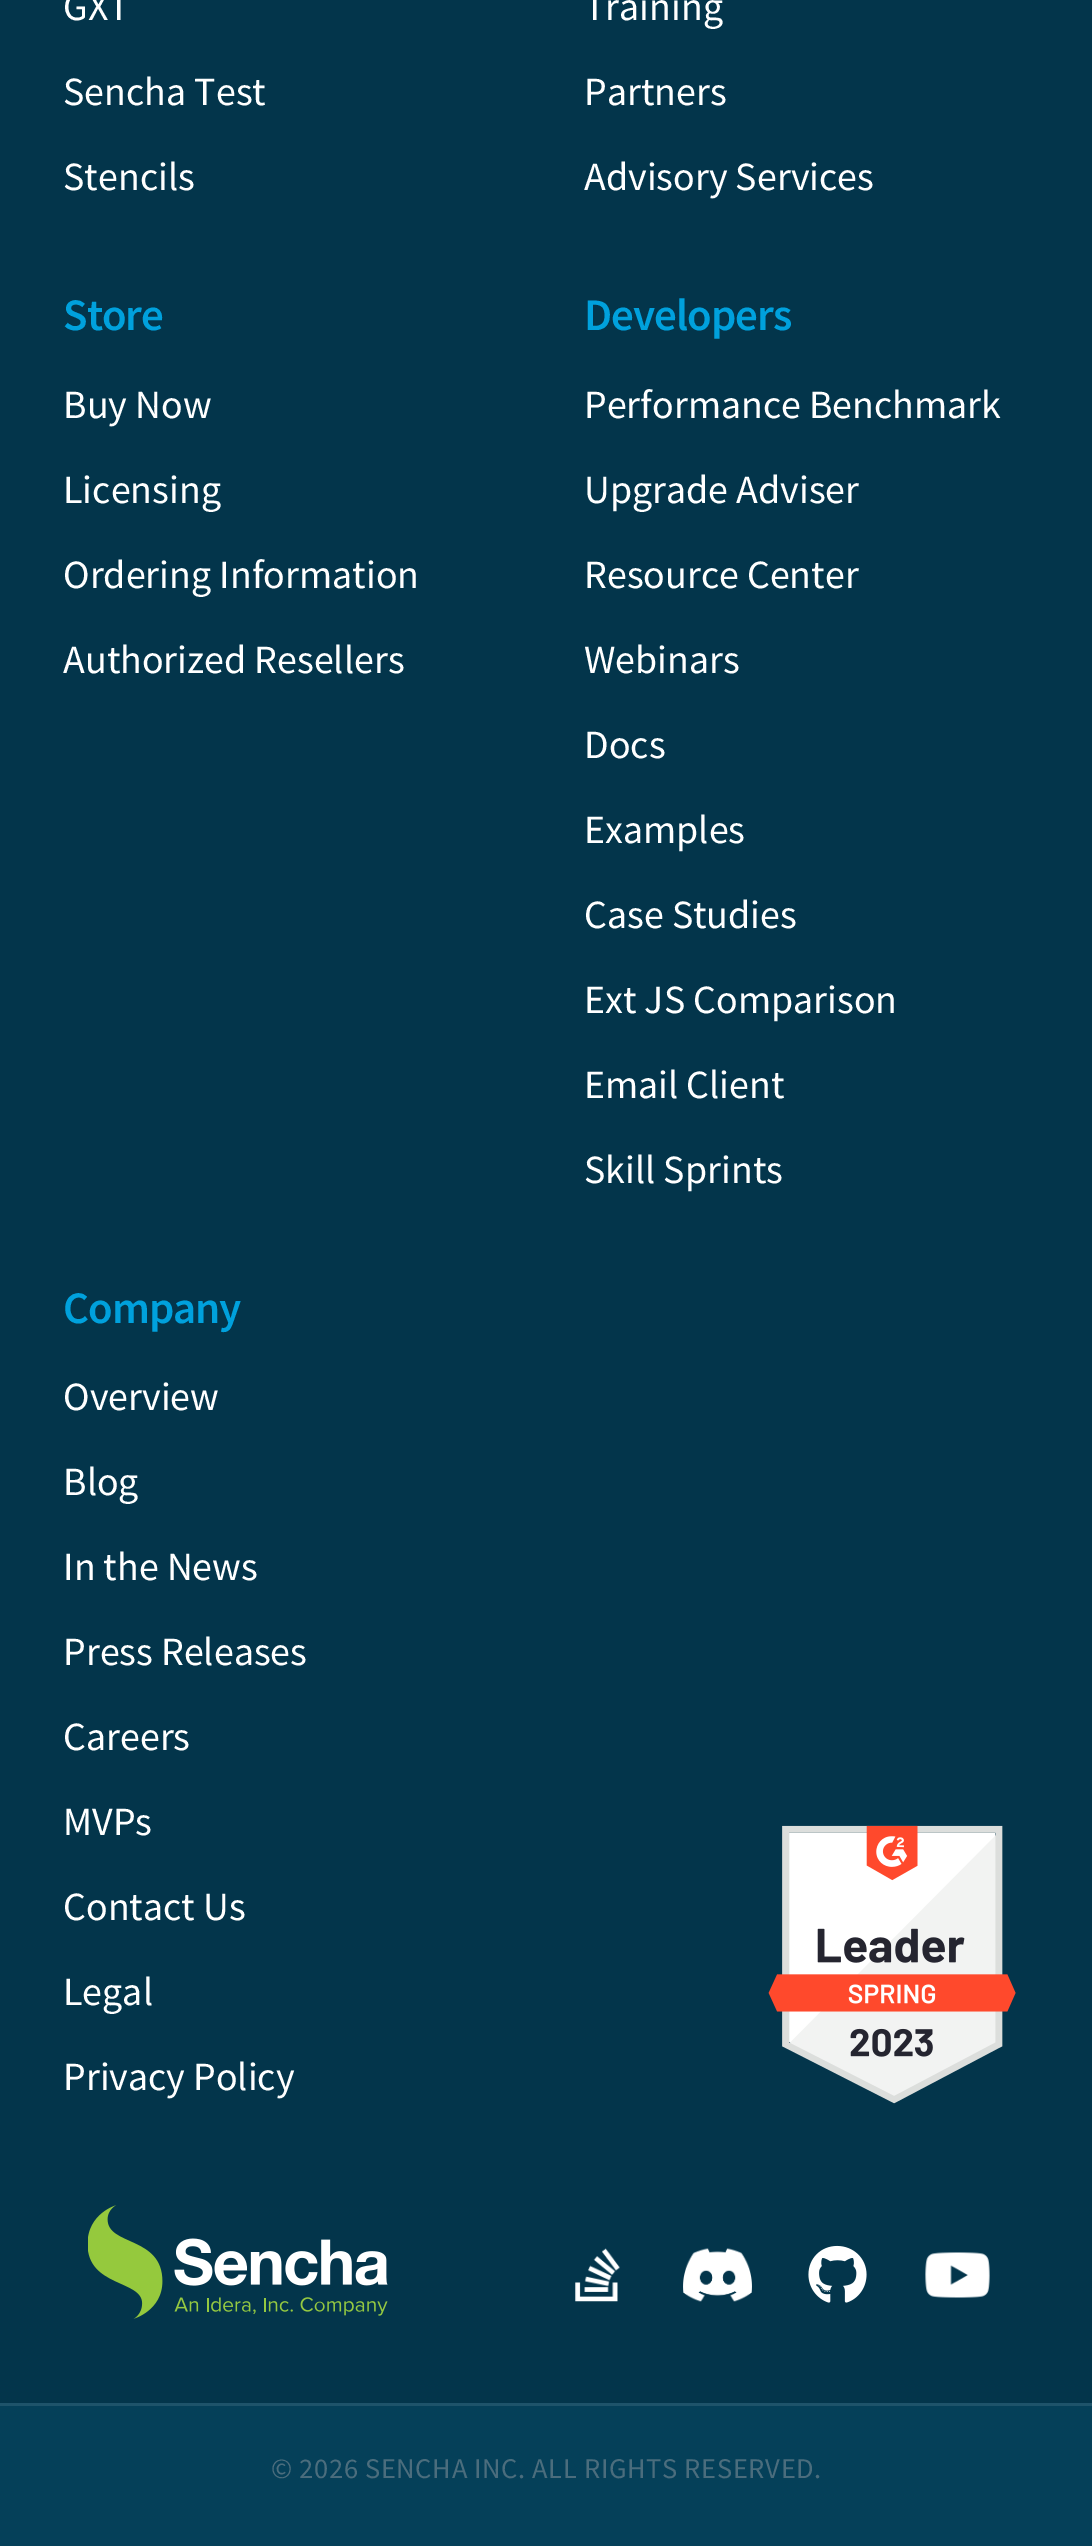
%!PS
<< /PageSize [1092 2546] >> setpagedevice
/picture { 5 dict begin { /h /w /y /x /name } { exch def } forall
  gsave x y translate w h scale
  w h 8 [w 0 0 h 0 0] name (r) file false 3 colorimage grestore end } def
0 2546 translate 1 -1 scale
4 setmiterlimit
0.02 0.251 0.349 setrgbcolor
0 0 1092 2546 rectfill
0.012 0.208 0.294 setrgbcolor
0 0 1092 2403 rectfill
/SourceSansPro-Regular [40 0 0 -40 0 0] selectfont
1 setgray
63 20 moveto (GXT) show
63 105 moveto (Sencha Test) show
63 190 moveto (Stencils) show
584 20 moveto (Training) show
584 105 moveto (Partners) show
584 190 moveto (Advisory Services) show
/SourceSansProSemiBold-SemiBold [45 0 0 -45 0 0] selectfont
0 0.631 0.867 setrgbcolor
63 330 moveto -1 0 (Store) ashow
/SourceSansPro-Regular [40 0 0 -40 0 0] selectfont
1 setgray
63 418 moveto (Buy Now) show
63 503 moveto (Licensing) show
63 588 moveto (Ordering Information) show
63 673 moveto (Authorized Resellers) show
/SourceSansProSemiBold-SemiBold [45 0 0 -45 0 0] selectfont
0 0.631 0.867 setrgbcolor
584 330 moveto -1 0 (Developers) ashow
/SourceSansPro-Regular [40 0 0 -40 0 0] selectfont
1 setgray
584 418 moveto (Performance Benchmark) show
584 503 moveto (Upgrade Adviser) show
584 588 moveto (Resource Center) show
584 673 moveto (Webinars) show
584 758 moveto (Docs) show
584 843 moveto (Examples) show
584 928 moveto (Case Studies) show
584 1013 moveto (Ext JS Comparison) show
584 1098 moveto (Email Client) show
584 1183 moveto (Skill Sprints) show
(img1.rgb) 768 1825 248 279 picture
/SourceSansProSemiBold-SemiBold [45 0 0 -45 0 0] selectfont
0 0.631 0.867 setrgbcolor
63 1323 moveto -1 0 (Company) ashow
/SourceSansPro-Regular [40 0 0 -40 0 0] selectfont
1 setgray
63 1410 moveto (Overview) show
63 1495 moveto (Blog) show
63 1580 moveto (In the News) show
63 1665 moveto (Press Releases) show
63 1750 moveto (Careers) show
63 1835 moveto (MVPs) show
63 1920 moveto (Contact Us) show
63 2005 moveto (Legal) show
63 2090 moveto (Privacy Policy) show
(img2.rgb) 88 2205 300 114 picture
(img3.rgb) 575 2248 45 54 picture
(img4.rgb) 683 2248 69 54 picture
(img5.rgb) 808 2245 59 58 picture
(img6.rgb) 925 2252 65 46 picture
0.118 0.325 0.416 setrgbcolor
0 2403 1092 3 rectfill
/SourceSansPro-Regular [28.5 0 0 -28.5 0 0] selectfont
0.294 0.427 0.49 setrgbcolor
271 2478 moveto 0.65 0 (© 2026 SENCHA INC. ALL RIGHTS RESERVED.) ashow
showpage
